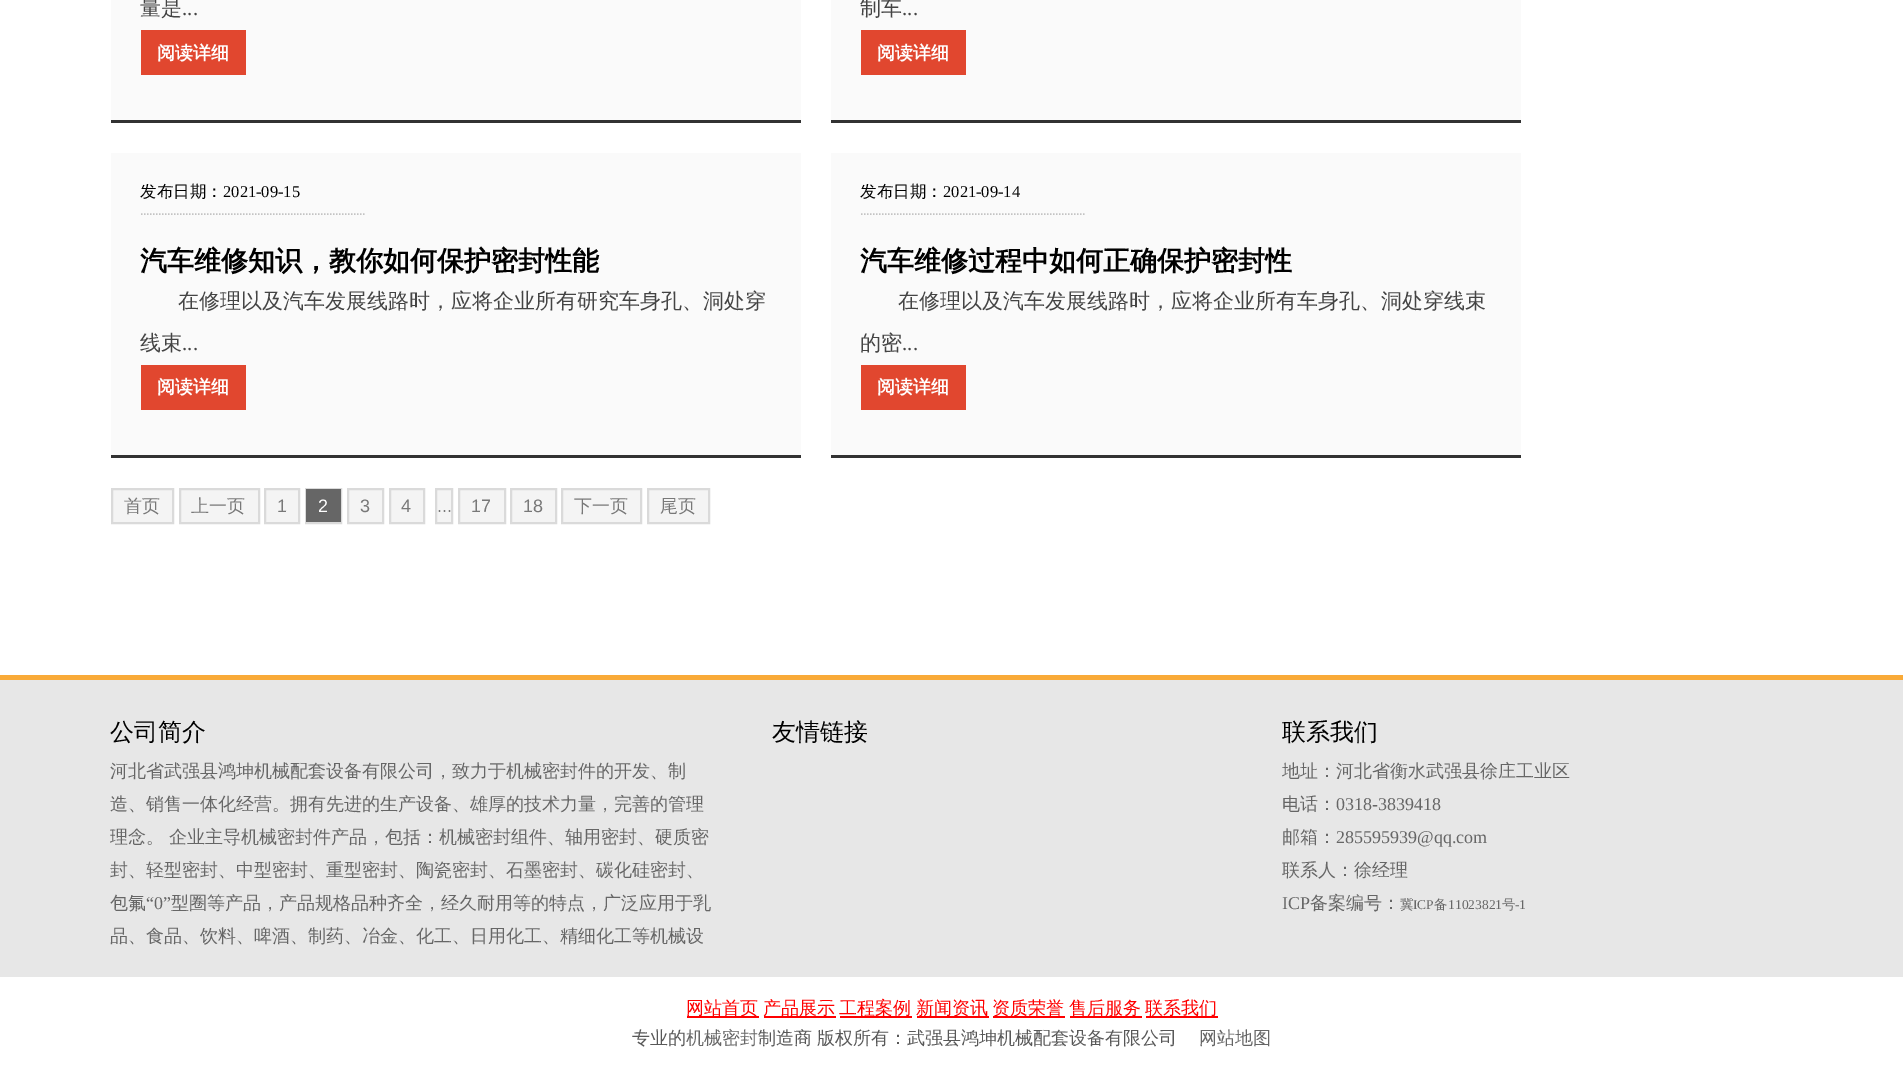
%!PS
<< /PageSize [1903 1069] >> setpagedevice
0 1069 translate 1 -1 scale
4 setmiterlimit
1 setgray
0 0 1903 1069 rectfill
0.98 setgray
111 0 690 120 rectfill
0.196 setgray
111 120 690 3 rectfill
/WenQuanYiZenHei-Medium [21 0 0 -21 0 0] selectfont
0.267 setgray
140 15 moveto (量是) show
/LiberationSerif-Regular [21 0 0 -21 0 0] selectfont
182 15 moveto (...) show
0.882 0.278 0.184 setrgbcolor
141 30 105 45 rectfill
/WenQuanYiZenHei-Bold [18 0 0 -18 0 0] selectfont
1 setgray
157 59 moveto (阅读详细) show
0.98 setgray
831 0 690 120 rectfill
0.196 setgray
831 120 690 3 rectfill
/WenQuanYiZenHei-Medium [21 0 0 -21 0 0] selectfont
0.267 setgray
860 15 moveto (制车) show
/LiberationSerif-Regular [21 0 0 -21 0 0] selectfont
902 15 moveto (...) show
0.882 0.278 0.184 setrgbcolor
861 30 105 45 rectfill
/WenQuanYiZenHei-Bold [18 0 0 -18 0 0] selectfont
1 setgray
877 59 moveto (阅读详细) show
0.98 setgray
111 153 690 302 rectfill
0.196 setgray
111 455 690 3 rectfill
0.765 setgray
1.5 setlinewidth
[1.5 1.5] 0 setdash
newpath 141 214 moveto 366 214 lineto stroke
/WenQuanYiZenHei-Medium [16.5 0 0 -16.5 0 0] selectfont
0 setgray
140 197 moveto (发布日期：) show
/LiberationSerif-Regular [16.5 0 0 -16.5 0 0] selectfont
223 197 moveto (2021-09-15) show
/WenQuanYiZenHei-Bold [27 0 0 -27 0 0] selectfont
140 270 moveto (汽车维修知识，教你如何保护密封性能) show
/WenQuanYiZenHei-Medium [21 0 0 -21 0 0] selectfont
0.267 setgray
178 308 moveto (在修理以及汽车发展线路时，应将企业所有研究车身孔、洞处穿) show
140 350 moveto (线束) show
/LiberationSerif-Regular [21 0 0 -21 0 0] selectfont
182 350 moveto (...) show
0.882 0.278 0.184 setrgbcolor
141 365 105 45 rectfill
/WenQuanYiZenHei-Bold [18 0 0 -18 0 0] selectfont
1 setgray
157 393 moveto (阅读详细) show
0.98 setgray
831 153 690 302 rectfill
0.196 setgray
831 455 690 3 rectfill
0.765 setgray
newpath 861 214 moveto 1086 214 lineto stroke
/WenQuanYiZenHei-Medium [16.5 0 0 -16.5 0 0] selectfont
0 setgray
860 197 moveto (发布日期：) show
/LiberationSerif-Regular [16.5 0 0 -16.5 0 0] selectfont
943 197 moveto (2021-09-14) show
/WenQuanYiZenHei-Bold [27 0 0 -27 0 0] selectfont
860 270 moveto (汽车维修过程中如何正确保护密封性) show
/WenQuanYiZenHei-Medium [21 0 0 -21 0 0] selectfont
0.267 setgray
898 308 moveto (在修理以及汽车发展线路时，应将企业所有车身孔、洞处穿线束) show
860 350 moveto (的密) show
/LiberationSerif-Regular [21 0 0 -21 0 0] selectfont
902 350 moveto (...) show
0.882 0.278 0.184 setrgbcolor
861 365 105 45 rectfill
/WenQuanYiZenHei-Bold [18 0 0 -18 0 0] selectfont
1 setgray
877 393 moveto (阅读详细) show
0.957 setgray
newpath 112 489 moveto 173 489 lineto 173 523 lineto 112 523 lineto closepath gsave fill grestore
0.855 setgray
2 setlinewidth
[] 0 setdash
stroke
/WenQuanYiZenHei-Medium [18 0 0 -18 0 0] selectfont
0.471 setgray
124 512 moveto (首页) show
0.957 setgray
newpath 180 489 moveto 259 489 lineto 259 523 lineto 180 523 lineto closepath gsave fill grestore
0.855 setgray
stroke
0.471 setgray
191 512 moveto (上一页) show
0.957 setgray
newpath 265 489 moveto 299 489 lineto 299 523 lineto 265 523 lineto closepath gsave fill grestore
0.855 setgray
stroke
/LiberationSans-Regular [18 0 0 -18 0 0] selectfont
0.471 setgray
277 512 moveto (1) show
0.855 setgray
306 489 35 34 rectstroke
0.4 setgray
306 489 35 33 rectfill
1 setgray
318 512 moveto (2) show
0.957 setgray
newpath 348 489 moveto 383 489 lineto 383 523 lineto 348 523 lineto closepath gsave fill grestore
0.855 setgray
stroke
0.471 setgray
360 512 moveto (3) show
0.957 setgray
newpath 390 489 moveto 424 489 lineto 424 523 lineto 390 523 lineto closepath gsave fill grestore
0.855 setgray
stroke
0.471 setgray
401 512 moveto (4) show
0.957 setgray
newpath 436 489 moveto 452 489 lineto 452 523 lineto 436 523 lineto closepath gsave fill grestore
0.855 setgray
stroke
0.471 setgray
437 512 moveto (...) show
0.957 setgray
newpath 459 489 moveto 505 489 lineto 505 523 lineto 459 523 lineto closepath gsave fill grestore
0.855 setgray
stroke
0.471 setgray
471 512 moveto (17) show
0.957 setgray
newpath 511 489 moveto 556 489 lineto 556 523 lineto 511 523 lineto closepath gsave fill grestore
0.855 setgray
stroke
0.471 setgray
523 512 moveto (18) show
0.957 setgray
newpath 562 489 moveto 641 489 lineto 641 523 lineto 562 523 lineto closepath gsave fill grestore
0.855 setgray
stroke
/WenQuanYiZenHei-Medium [18 0 0 -18 0 0] selectfont
0.471 setgray
574 512 moveto (下一页) show
0.957 setgray
newpath 648 489 moveto 709 489 lineto 709 523 lineto 648 523 lineto closepath gsave fill grestore
0.855 setgray
stroke
0.471 setgray
660 512 moveto (尾页) show
0.906 setgray
0 680 1903 297 rectfill
0.976 0.667 0.22 setrgbcolor
0 675 1903 5 rectfill
/WenQuanYiZenHei-Medium [24 0 0 -24 0 0] selectfont
0 setgray
110 740 moveto (公司简介) show
/WenQuanYiZenHei-Medium [18 0 0 -18 0 0] selectfont
0.4 setgray
110 777 moveto (河北省武强县鸿坤机械配套设备有限公司，致力于机械密封件的开发、制) show
110 810 moveto (造、销售一体化经营。拥有先进的生产设备、雄厚的技术力量，完善的管理) show
110 843 moveto (理念。) show
169 843 moveto (企业主导机械密封件产品，包括：机械密封组件、轴用密封、硬质密) show
110 876 moveto (封、轻型密封、中型密封、重型密封、陶瓷密封、石墨密封、碳化硅密封、) show
110 909 moveto (包氟) show
/LiberationSerif-Regular [18 0 0 -18 0 0] selectfont
146 909 moveto (“0”) show
/WenQuanYiZenHei-Medium [18 0 0 -18 0 0] selectfont
171 909 moveto (型圈等产品，产品规格品种齐全，经久耐用等的特点，广泛应用于乳) show
110 942 moveto (品、食品、饮料、啤酒、制药、冶金、化工、日用化工、精细化工等机械设) show
/WenQuanYiZenHei-Medium [24 0 0 -24 0 0] selectfont
0 setgray
772 740 moveto (友情链接) show
1282 740 moveto (联系我们) show
/WenQuanYiZenHei-Medium [18 0 0 -18 0 0] selectfont
0.4 setgray
1282 777 moveto (地址：河北省衡水武强县徐庄工业区) show
1282 810 moveto (电话：) show
/LiberationSerif-Regular [18 0 0 -18 0 0] selectfont
1336 810 moveto (0318-3839418) show
/WenQuanYiZenHei-Medium [18 0 0 -18 0 0] selectfont
1282 843 moveto (邮箱：) show
/LiberationSerif-Regular [18 0 0 -18 0 0] selectfont
1336 843 moveto (285595939@qq.com) show
/WenQuanYiZenHei-Medium [18 0 0 -18 0 0] selectfont
1282 876 moveto (联系人：徐经理) show
/LiberationSerif-Regular [18 0 0 -18 0 0] selectfont
1282 909 moveto (ICP) show
/WenQuanYiZenHei-Medium [18 0 0 -18 0 0] selectfont
1310 909 moveto (备案编号：) show
/WenQuanYiZenHei-Medium [13.5 0 0 -13.5 0 0] selectfont
1400 909 moveto (冀) show
/LiberationSerif-Regular [13.5 0 0 -13.5 0 0] selectfont
1413 909 moveto (ICP) show
/WenQuanYiZenHei-Medium [13.5 0 0 -13.5 0 0] selectfont
1434 909 moveto (备) show
/LiberationSerif-Regular [13.5 0 0 -13.5 0 0] selectfont
1448 909 moveto (11023821) show
/WenQuanYiZenHei-Medium [13.5 0 0 -13.5 0 0] selectfont
1502 909 moveto (号) show
/LiberationSerif-Regular [13.5 0 0 -13.5 0 0] selectfont
1515 909 moveto (-1) show
1 0 0 setrgbcolor
687 1016 72 2 rectfill
/WenQuanYiZenHei-Medium [18 0 0 -18 0 0] selectfont
686 1014 moveto (网站首页) show
764 1016 72 2 rectfill
763 1014 moveto (产品展示) show
840 1016 72 2 rectfill
839 1014 moveto (工程案例) show
917 1016 72 2 rectfill
916 1014 moveto (新闻资讯) show
993 1016 72 2 rectfill
992 1014 moveto (资质荣誉) show
1070 1016 72 2 rectfill
1069 1014 moveto (售后服务) show
1146 1016 72 2 rectfill
1145 1014 moveto (联系我们) show
0.345 setgray
632 1044 moveto (专业的) show
0.4 setgray
686 1044 moveto (机械密封) show
0.345 setgray
758 1044 moveto (制造商 版权所有：武强县鸿坤机械配套设备有限公司) show
0.4 setgray
1199 1044 moveto (网站地图) show
showpage
